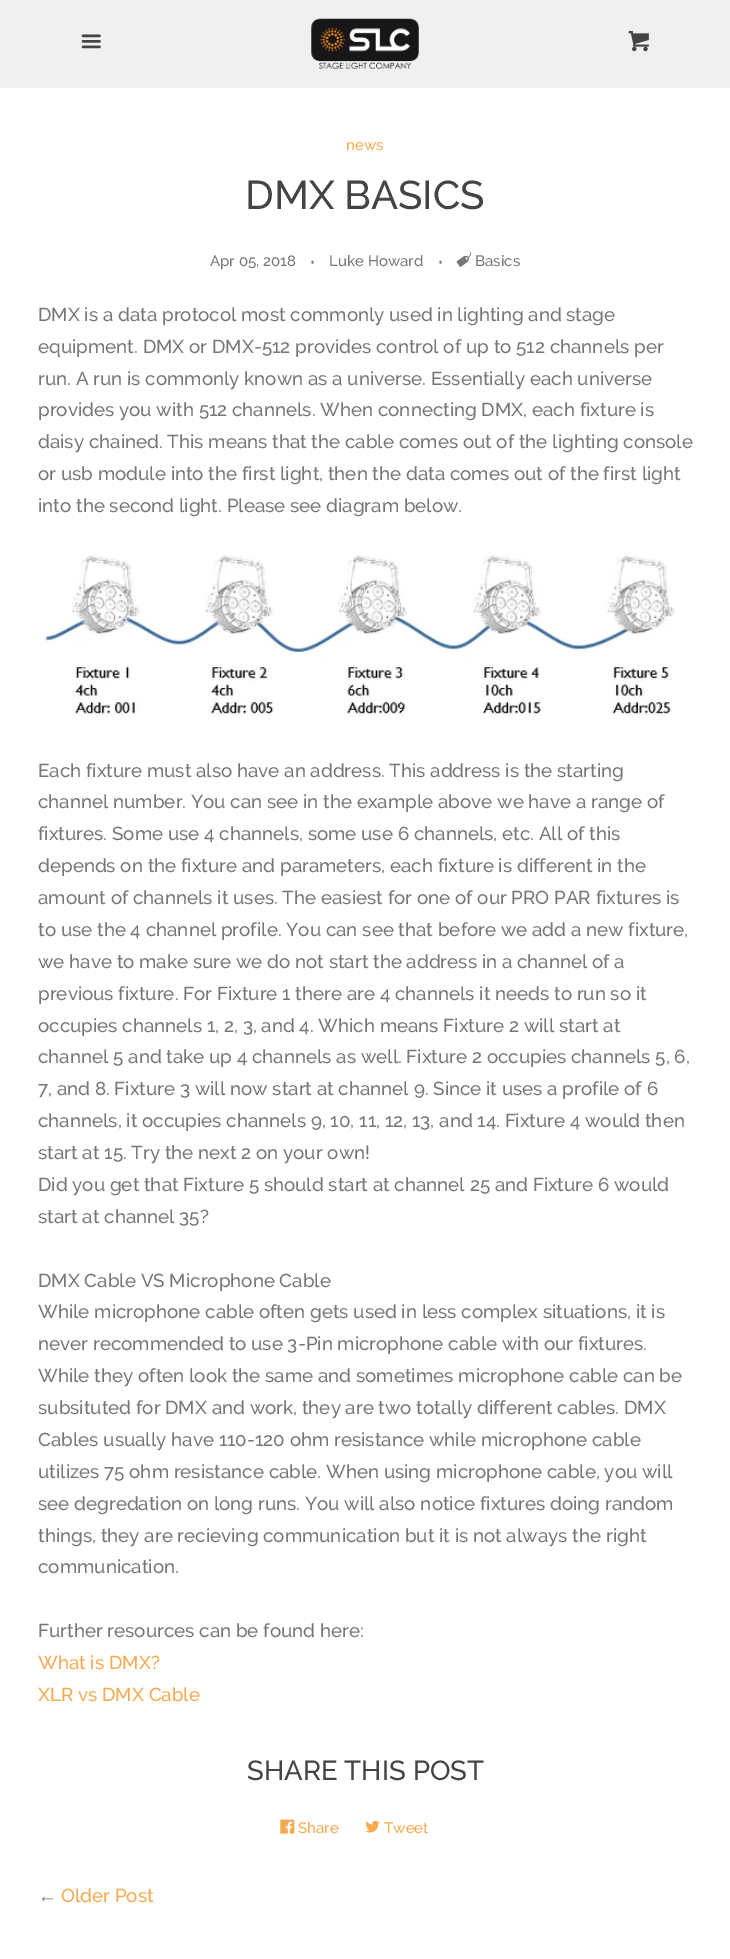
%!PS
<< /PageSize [730 1959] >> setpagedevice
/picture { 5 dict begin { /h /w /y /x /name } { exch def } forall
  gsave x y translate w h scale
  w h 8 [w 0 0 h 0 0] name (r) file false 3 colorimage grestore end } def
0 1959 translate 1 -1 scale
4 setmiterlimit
0.941 setgray
0 0 730 1959 rectfill
(img1.rgb) 81 34 20 15 picture
(img2.rgb) 311 18 108 51 picture
(img3.rgb) 628 31 21 21 picture
1 setgray
0 88 730 1871 rectfill
/Raleway-Medium [15 0 0 -15 0 0] selectfont
0.965 0.663 0.306 setrgbcolor
346 150 moveto (news) show
/Raleway-Medium [40 0 0 -40 0 0] selectfont
0.267 setgray
245 209 moveto (DMX BASICS) show
/Raleway-Medium [15 0 0 -15 0 0] selectfont
0.467 setgray
210 266 moveto (Apr 05, 2018) show
/Raleway-Medium [25 0 0 -25 0 0] selectfont
310 270 moveto (·) show
/Raleway-Medium [15 0 0 -15 0 0] selectfont
329 266 moveto (Luke Howard) show
/Raleway-Medium [25 0 0 -25 0 0] selectfont
438 270 moveto (·) show
(img4.rgb) 456 252 15 15 picture
/Raleway-Medium [15 0 0 -15 0 0] selectfont
475 266 moveto (Basics) show
/Raleway-Medium [18.75 0 0 -18.75 0 0] selectfont
38 321 moveto (DMX is a data protocol most commonly used in lighting and stage) show
38 353 moveto (equipment. DMX or DMX-512 provides control of up to 512 channels per) show
38 385 moveto (run. A run is commonly known as a universe. Essentially each universe) show
38 416 moveto (provides you with 512 channels. When connecting DMX, each fixture is) show
38 448 moveto (daisy chained. This means that the cable comes out of the lighting console) show
38 480 moveto (or usb module into the first light, then the data comes out of the first light) show
38 512 moveto (into the second light. Please see diagram below.) show
(img5.rgb) 45 555 630 161 picture
38 777 moveto (Each fixture must also have an address. This address is the starting) show
38 808 moveto (channel number. You can see in the example above we have a range of) show
38 840 moveto (fixtures. Some use 4 channels, some use 6 channels, etc. All of this) show
38 872 moveto (depends on the fixture and parameters, each fixture is different in the) show
38 904 moveto (amount of channels it uses. The easiest for one of our PRO PAR fixtures is) show
38 936 moveto (to use the 4 channel profile. You can see that before we add a new fixture,) show
38 968 moveto (we have to make sure we do not start the address in a channel of a) show
38 1000 moveto (previous fixture. For Fixture 1 there are 4 channels it needs to run so it) show
38 1032 moveto (occupies channels 1, 2, 3, and 4. Which means Fixture 2 will start at) show
38 1063 moveto (channel 5 and take up 4 channels as well. Fixture 2 occupies channels 5, 6,) show
38 1095 moveto (7, and 8. Fixture 3 will now start at channel 9. Since it uses a profile of 6) show
38 1127 moveto (channels, it occupies channels 9, 10, 11, 12, 13, and 14. Fixture 4 would then) show
38 1159 moveto (start at 15. Try the next 2 on your own!) show
38 1191 moveto (Did you get that Fixture 5 should start at channel 25 and Fixture 6 would) show
38 1223 moveto (start at channel 35?) show
38 1287 moveto (DMX Cable VS Microphone Cable) show
38 1318 moveto (While microphone cable often gets used in less complex situations, it is) show
38 1350 moveto (never recommended to use 3-Pin microphone cable with our fixtures.) show
38 1382 moveto (While they often look the same and sometimes microphone cable can be) show
38 1414 moveto (subsituted for DMX and work, they are two totally different cables. DMX) show
38 1446 moveto (Cables usually have 110-120 ohm resistance while microphone cable) show
38 1478 moveto (utilizes 75 ohm resistance cable. When using microphone cable, you will) show
38 1510 moveto (see degredation on long runs. You will also notice fixtures doing random) show
38 1542 moveto (things, they are recieving communication but it is not always the right) show
38 1573 moveto (communication.) show
38 1637 moveto (Further resources can be found here:) show
0.965 0.663 0.306 setrgbcolor
38 1669 moveto (What is DMX?) show
38 1701 moveto (XLR vs DMX Cable) show
/Raleway-Medium [27.5 0 0 -27.5 0 0] selectfont
0.267 setgray
247 1780 moveto (SHARE THIS POST) show
(img6.rgb) 280 1819 15 15 picture
/Raleway-Medium [15 0 0 -15 0 0] selectfont
0.965 0.663 0.306 setrgbcolor
298 1833 moveto (Share) show
(img7.rgb) 365 1820 15 13 picture
384 1833 moveto (Tweet) show
/LiberationSans-Regular [18.75 0 0 -18.75 0 0] selectfont
0.467 setgray
38 1902 moveto (←) show
/Raleway-Medium [18.75 0 0 -18.75 0 0] selectfont
0.965 0.663 0.306 setrgbcolor
61 1902 moveto (Older Post) show
showpage
